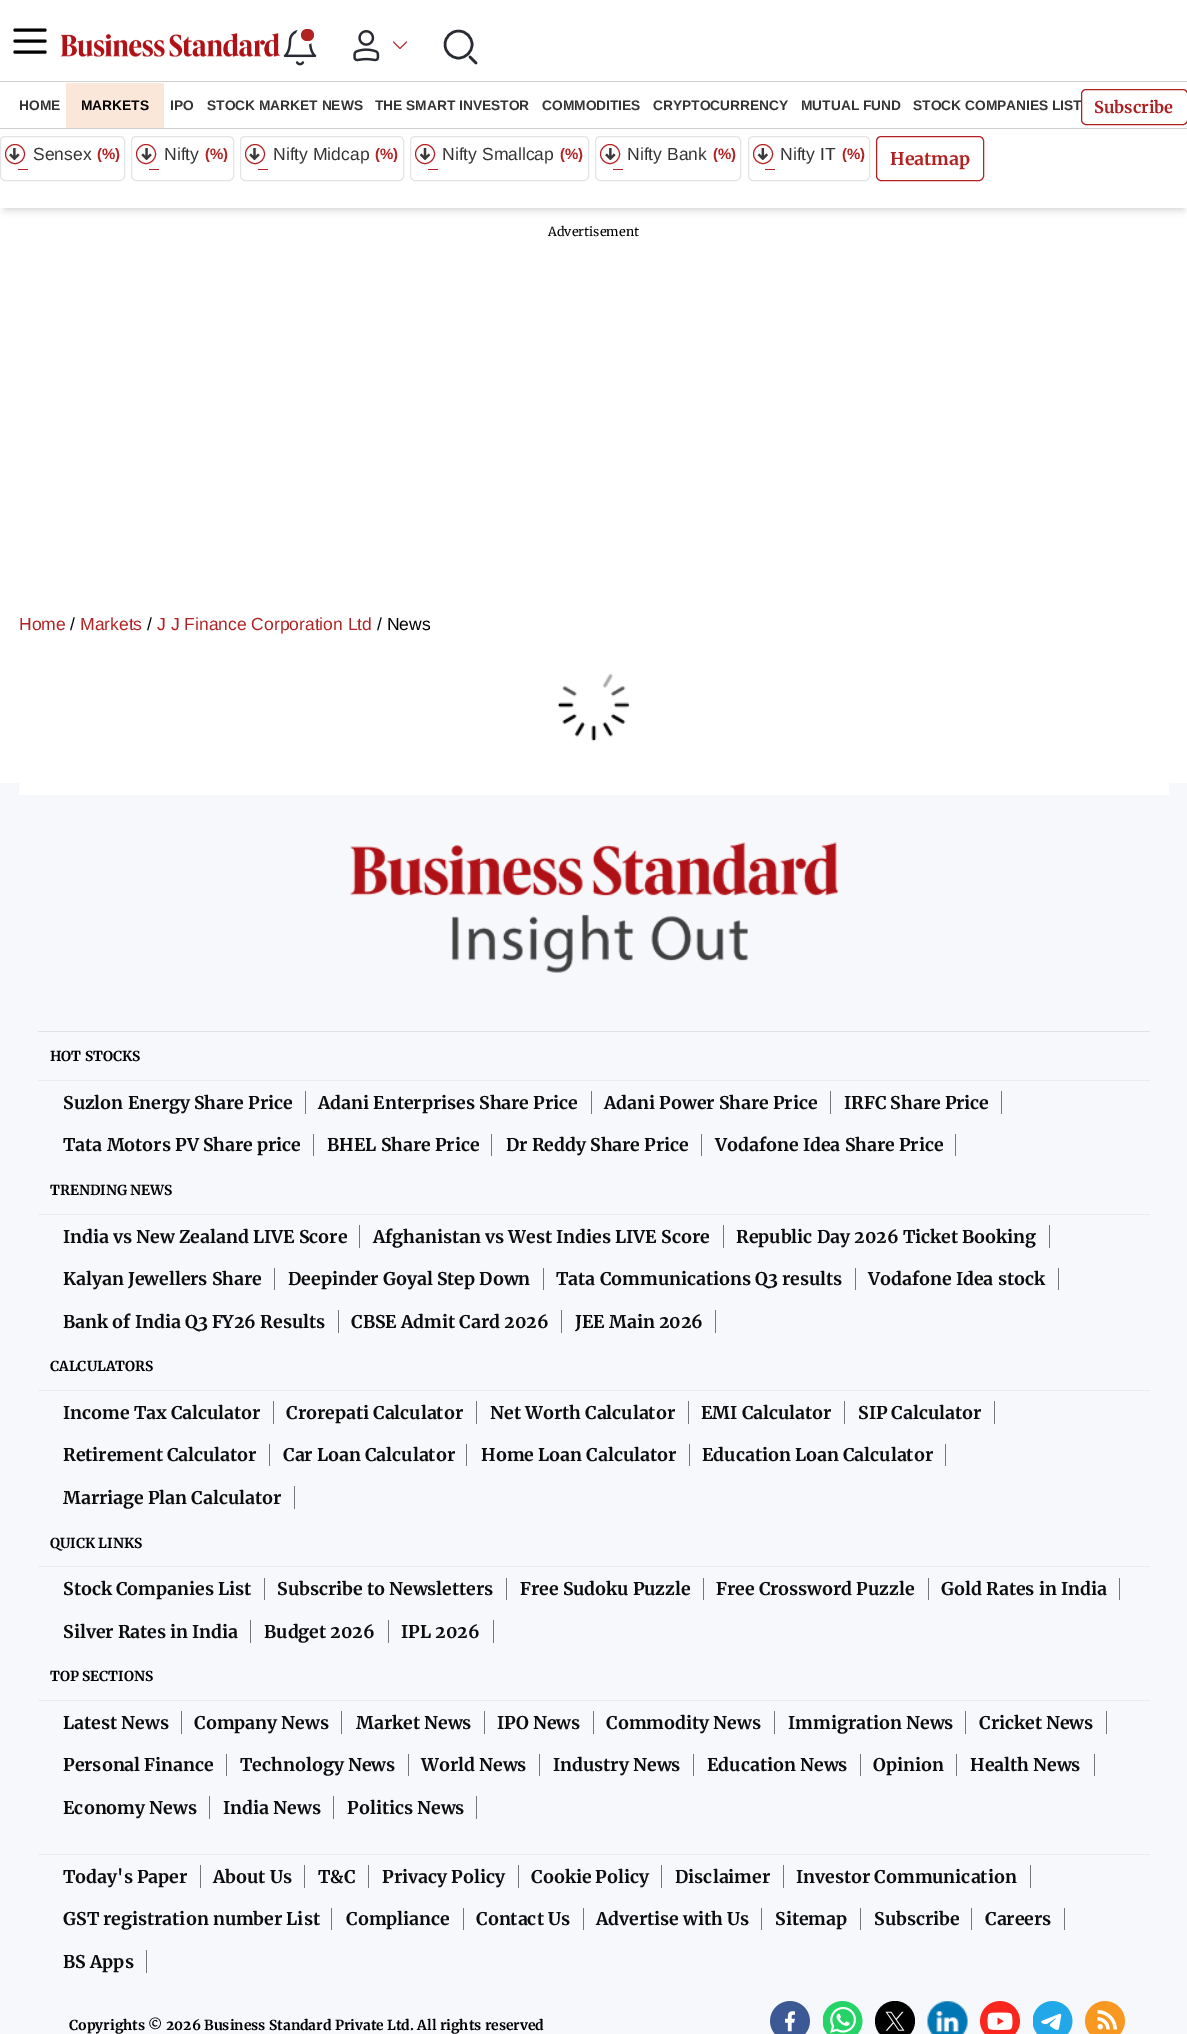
%!PS
<< /PageSize [1187 2034] /PageUsesTransparency true >> setpagedevice
/alpha { dup .setfillconstantalpha .setstrokeconstantalpha } def
/roundrect { 5 dict begin { /r /h /w /y /x } { exch def } forall
  x r add y moveto x w add y 2 copy h add r arct x w add y h add x 1 index r arct
  x y h add x y r arct x y 2 copy exch w add exch r arct closepath end } def
/shadow { 12 dict begin { /a /b /q /h /w /y /x } { exch def } forall gsave /was 0 def
  9 -2 -9 { dup b mul 4 div /e exch def 1 sub .425 mul 2.718 exch exp 1 add a .99 .min exch div /now exch def
    1 1 now sub 1 was sub div sub alpha /was now def
    w h .min e 2 mul add 0 gt { x e sub y e sub w e 2 mul add h e 2 mul add
      q e add b .6 mul add w h .min 2 div e add .min 0 .max roundrect fill } if } for grestore end } def
/picture { 5 dict begin { /h /w /y /x /name } { exch def } forall
  gsave x y translate w h scale
  w h 8 [w 0 0 h 0 0] name (r) file false 3 colorimage grestore end } def
0 .pushpdf14devicefilter
0 2034 translate 1 -1 scale
4 setmiterlimit
1 setgray
0 0 1187 2034 rectfill
0 setgray
3.1 setlinewidth
1 setlinecap
newpath 45 30 moveto 15 30 lineto 45 41 moveto 15 41 lineto 45 52 moveto 15 52 lineto stroke
(img1.rgb) 60 33 220 24 picture
(img2.rgb) 283 29 34 37 picture
1 setgray
newpath 305.5 35.5 9.5 0 360 arc closepath fill
0.698 0.133 0.133 setrgbcolor
301 29 13 12 6 roundrect fill
(img3.rgb) 353 30 27 32 picture
0.8 setlinewidth
1 setlinejoin
newpath 393.5 42 moveto 400 48.5 lineto 406.5 42 lineto stroke
0.157 0.169 0.196 setrgbcolor
2.5 setlinewidth
0 setlinecap
0 setlinejoin
newpath 458.5 44.5 13.5 0 360 arc closepath stroke
1 setlinecap
1 setlinejoin
newpath 470 57 moveto 476 63 lineto stroke
0.812 setgray
0 81 1187 1 rectfill
0 setgray
5 140 1178 70 0 4 0.17 shadow
0.812 setgray
0 128 1187 1 rectfill
/LiberationSans-Bold [13.75 0 0 -13.75 0 0] selectfont
0.204 setgray
19 110 moveto (HOME) show
0.98 0.906 0.855 setrgbcolor
66 83 98 45 rectfill
0 setgray
81 110 moveto (MARKETS) show
0.204 setgray
170 110 moveto (IPO) show
207 110 moveto (STOCK MARKET NEWS) show
375 110 moveto (THE SMART INVESTOR) show
542 110 moveto (COMMODITIES) show
653 110 moveto (CRYPTOCURRENCY) show
801 110 moveto (MUTUAL FUND) show
913 110 moveto (STOCK COMPANIES LIST) show
1 setgray
1081.5 89.5 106 35 4.5 roundrect gsave fill grestore
0.675 0.129 0.133 setrgbcolor
1 setlinewidth
0 setlinecap
0 setlinejoin
stroke
/Merriweather-Bold [16.25 0 0 -16.25 0 0] selectfont
1094 113 moveto (Subscribe) show
1 setgray
0 134 1187 74 rectfill
0.894 setgray
0.5 136.5 124 44 4.5 roundrect stroke
0.698 0.133 0.133 setrgbcolor
newpath 15 154 9.5 0 360 arc closepath stroke
(img4.rgb) 9 148 11 12 picture
/LiberationSans-Regular [17.5 0 0 -17.5 0 0] selectfont
0.204 setgray
33 160 moveto (Sensex) show
/LiberationSans-Bold [15 0 0 -15 0 0] selectfont
0.698 0.133 0.133 setrgbcolor
97 159 moveto (\(%\)) show
18 169 10 1 0.5 roundrect fill
0.894 setgray
131.5 136.5 102 44 4.5 roundrect stroke
0.698 0.133 0.133 setrgbcolor
newpath 146 154 9.5 0 360 arc closepath stroke
(img5.rgb) 141 148 11 12 picture
/LiberationSans-Regular [17.5 0 0 -17.5 0 0] selectfont
0.204 setgray
164 160 moveto (Nifty) show
/LiberationSans-Bold [15 0 0 -15 0 0] selectfont
0.698 0.133 0.133 setrgbcolor
205 159 moveto (\(%\)) show
149 169 10 1 0.5 roundrect fill
0.894 setgray
240.5 136.5 163 44 4.5 roundrect stroke
0.698 0.133 0.133 setrgbcolor
newpath 255 154 9.5 0 360 arc closepath stroke
(img6.rgb) 249 148 11 12 picture
/LiberationSans-Regular [17.5 0 0 -17.5 0 0] selectfont
0.204 setgray
273 160 moveto (Nifty Midcap) show
/LiberationSans-Bold [15 0 0 -15 0 0] selectfont
0.698 0.133 0.133 setrgbcolor
375 159 moveto (\(%\)) show
258 169 10 1 0.5 roundrect fill
0.894 setgray
410.5 136.5 178 44 4.5 roundrect stroke
0.698 0.133 0.133 setrgbcolor
newpath 425 154 9.5 0 360 arc closepath stroke
(img7.rgb) 419 148 12 12 picture
/LiberationSans-Regular [17.5 0 0 -17.5 0 0] selectfont
0.204 setgray
442 160 moveto (Nifty Smallcap) show
/LiberationSans-Bold [15 0 0 -15 0 0] selectfont
0.698 0.133 0.133 setrgbcolor
560 159 moveto (\(%\)) show
428 169 10 1 0.5 roundrect fill
0.894 setgray
595.5 136.5 145 44 4.5 roundrect stroke
0.698 0.133 0.133 setrgbcolor
newpath 610 154 9.5 0 360 arc closepath stroke
(img8.rgb) 605 148 11 12 picture
/LiberationSans-Regular [17.5 0 0 -17.5 0 0] selectfont
0.204 setgray
627 160 moveto (Nifty Bank) show
/LiberationSans-Bold [15 0 0 -15 0 0] selectfont
0.698 0.133 0.133 setrgbcolor
713 159 moveto (\(%\)) show
613 169 10 1 0.5 roundrect fill
0.894 setgray
748.5 136.5 121 44 4.5 roundrect stroke
0.698 0.133 0.133 setrgbcolor
newpath 763 154 9.5 0 360 arc closepath stroke
(img9.rgb) 757 148 11 12 picture
/LiberationSans-Regular [17.5 0 0 -17.5 0 0] selectfont
0.204 setgray
780 160 moveto (Nifty IT) show
/LiberationSans-Bold [15 0 0 -15 0 0] selectfont
0.698 0.133 0.133 setrgbcolor
842 159 moveto (\(%\)) show
765 169 10 1 0.5 roundrect fill
876.5 136.5 107 44 4.5 roundrect stroke
/Merriweather-Bold [17.5 0 0 -17.5 0 0] selectfont
890 165 moveto (Heatmap) show
/Merriweather-Regular [12.5 0 0 -12.5 0 0] selectfont
0 setgray
548 236 moveto (Advertisement) show
/LiberationSans-Regular [17.5 0 0 -17.5 0 0] selectfont
0.698 0.133 0.133 setrgbcolor
19 630 moveto (Home) show
0 setgray
70 630 moveto (/) show
0.698 0.133 0.133 setrgbcolor
80 630 moveto (Markets) show
0 setgray
147 630 moveto (/) show
0.698 0.133 0.133 setrgbcolor
157 630 moveto (J J Finance Corporation Ltd) show
0 setgray
377 630 moveto (/ News) show
(img10.rgb) 557 673 73 69 picture
0.969 0.973 0.988 setrgbcolor
0 783 1187 1251 rectfill
1 setgray
19 783 1150 12 rectfill
0.871 0.886 0.902 setrgbcolor
38 1031 1112 1 rectfill
(img11.rgb) 350 842 488 131 picture
0.925 setgray
38 1080 1112 1 rectfill
/Merriweather-Bold [13.75 0 0 -13.75 0 0] selectfont
0 setgray
50 1061 moveto (HOT STOCKS) show
0.467 setgray
305 1091 1 23 rectfill
/Merriweather-Bold [17.5 0 0 -17.5 0 0] selectfont
0.051 setgray
63 1109 moveto (Suzlon Energy Share Price) show
0.467 setgray
591 1091 1 23 rectfill
0.051 setgray
318 1109 moveto (Adani Enterprises Share Price) show
0.467 setgray
830 1091 1 23 rectfill
0.051 setgray
604 1109 moveto (Adani Power Share Price) show
0.467 setgray
1001 1091 1 23 rectfill
0.051 setgray
844 1109 moveto (IRFC Share Price) show
0.467 setgray
313 1134 1 22 rectfill
0.051 setgray
63 1151 moveto (Tata Motors PV Share price) show
0.467 setgray
491 1134 1 22 rectfill
0.051 setgray
327 1151 moveto (BHEL Share Price) show
0.467 setgray
701 1134 1 22 rectfill
0.051 setgray
506 1151 moveto (Dr Reddy Share Price) show
0.467 setgray
955 1134 1 22 rectfill
0.051 setgray
715 1151 moveto (Vodafone Idea Share Price) show
0.925 setgray
38 1214 1112 1 rectfill
/Merriweather-Bold [13.75 0 0 -13.75 0 0] selectfont
0 setgray
50 1195 moveto (TRENDING NEWS) show
0.467 setgray
359 1225 1 23 rectfill
/Merriweather-Bold [17.5 0 0 -17.5 0 0] selectfont
0.051 setgray
63 1243 moveto (India vs New Zealand LIVE Score) show
0.467 setgray
723 1225 1 23 rectfill
0.051 setgray
373 1243 moveto (Afghanistan vs West Indies LIVE Score) show
0.467 setgray
1049 1225 1 23 rectfill
0.051 setgray
736 1243 moveto (Republic Day 2026 Ticket Booking) show
0.467 setgray
274 1268 1 22 rectfill
0.051 setgray
63 1285 moveto (Kalyan Jewellers Share) show
0.467 setgray
543 1268 1 22 rectfill
0.051 setgray
288 1285 moveto (Deepinder Goyal Step Down) show
0.467 setgray
855 1268 1 22 rectfill
0.051 setgray
556 1285 moveto (Tata Communications Q3 results) show
0.467 setgray
1058 1268 1 22 rectfill
0.051 setgray
868 1285 moveto (Vodafone Idea stock) show
0.467 setgray
338 1310 1 23 rectfill
0.051 setgray
63 1328 moveto (Bank of India Q3 FY26 Results) show
0.467 setgray
561 1310 1 23 rectfill
0.051 setgray
351 1328 moveto (CBSE Admit Card 2026) show
0.467 setgray
715 1310 1 23 rectfill
0.051 setgray
575 1328 moveto (JEE Main 2026) show
0.925 setgray
38 1390 1112 1 rectfill
/Merriweather-Bold [13.75 0 0 -13.75 0 0] selectfont
0 setgray
50 1371 moveto (CALCULATORS) show
0.467 setgray
273 1401 1 23 rectfill
/Merriweather-Bold [17.5 0 0 -17.5 0 0] selectfont
0.051 setgray
63 1419 moveto (Income Tax Calculator) show
0.467 setgray
476 1401 1 23 rectfill
0.051 setgray
286 1419 moveto (Crorepati Calculator) show
0.467 setgray
688 1401 1 23 rectfill
0.051 setgray
490 1419 moveto (Net Worth Calculator) show
0.467 setgray
844 1401 1 23 rectfill
0.051 setgray
701 1419 moveto (EMI Calculator) show
0.467 setgray
994 1401 1 23 rectfill
0.051 setgray
858 1419 moveto (SIP Calculator) show
0.467 setgray
269 1444 1 22 rectfill
0.051 setgray
63 1461 moveto (Retirement Calculator) show
0.467 setgray
466 1444 1 22 rectfill
0.051 setgray
283 1461 moveto (Car Loan Calculator) show
0.467 setgray
689 1444 1 22 rectfill
0.051 setgray
481 1461 moveto (Home Loan Calculator) show
0.467 setgray
945 1444 1 22 rectfill
0.051 setgray
702 1461 moveto (Education Loan Calculator) show
0.467 setgray
294 1486 1 23 rectfill
0.051 setgray
63 1504 moveto (Marriage Plan Calculator) show
0.925 setgray
38 1566 1112 1 rectfill
/Merriweather-Bold [13.75 0 0 -13.75 0 0] selectfont
0 setgray
50 1548 moveto (QUICK LINKS) show
0.467 setgray
264 1578 1 22 rectfill
/Merriweather-Bold [17.5 0 0 -17.5 0 0] selectfont
0.051 setgray
63 1595 moveto (Stock Companies List) show
0.467 setgray
506 1578 1 22 rectfill
0.051 setgray
277 1595 moveto (Subscribe to Newsletters) show
0.467 setgray
703 1578 1 22 rectfill
0.051 setgray
520 1595 moveto (Free Sudoku Puzzle) show
0.467 setgray
928 1578 1 22 rectfill
0.051 setgray
716 1595 moveto (Free Crossword Puzzle) show
0.467 setgray
1119 1578 1 22 rectfill
0.051 setgray
941 1595 moveto (Gold Rates in India) show
0.467 setgray
250 1620 1 23 rectfill
0.051 setgray
63 1638 moveto (Silver Rates in India) show
0.467 setgray
388 1620 1 23 rectfill
0.051 setgray
264 1638 moveto (Budget 2026) show
0.467 setgray
493 1620 1 23 rectfill
0.051 setgray
401 1638 moveto (IPL 2026) show
0.925 setgray
38 1700 1112 1 rectfill
/Merriweather-Bold [13.75 0 0 -13.75 0 0] selectfont
0 setgray
50 1681 moveto (TOP SECTIONS) show
0.467 setgray
181 1711 1 23 rectfill
/Merriweather-Bold [17.5 0 0 -17.5 0 0] selectfont
0.051 setgray
63 1729 moveto (Latest News) show
0.467 setgray
341 1711 1 23 rectfill
0.051 setgray
194 1729 moveto (Company News) show
0.467 setgray
484 1711 1 23 rectfill
0.051 setgray
356 1729 moveto (Market News) show
0.467 setgray
593 1711 1 23 rectfill
0.051 setgray
497 1729 moveto (IPO News) show
0.467 setgray
774 1711 1 23 rectfill
0.051 setgray
606 1729 moveto (Commodity News) show
0.467 setgray
965 1711 1 23 rectfill
0.051 setgray
788 1729 moveto (Immigration News) show
0.467 setgray
1106 1711 1 23 rectfill
0.051 setgray
979 1729 moveto (Cricket News) show
0.467 setgray
226 1754 1 22 rectfill
0.051 setgray
63 1771 moveto (Personal Finance) show
0.467 setgray
408 1754 1 22 rectfill
0.051 setgray
240 1771 moveto (Technology News) show
0.467 setgray
539 1754 1 22 rectfill
0.051 setgray
421 1771 moveto (World News) show
0.467 setgray
693 1754 1 22 rectfill
0.051 setgray
553 1771 moveto (Industry News) show
0.467 setgray
860 1754 1 22 rectfill
0.051 setgray
707 1771 moveto (Education News) show
0.467 setgray
956 1754 1 22 rectfill
0.051 setgray
873 1771 moveto (Opinion) show
0.467 setgray
1094 1754 1 22 rectfill
0.051 setgray
970 1771 moveto (Health News) show
0.467 setgray
209 1796 1 23 rectfill
0.051 setgray
63 1814 moveto (Economy News) show
0.467 setgray
333 1796 1 23 rectfill
0.051 setgray
223 1814 moveto (India News) show
0.467 setgray
476 1796 1 23 rectfill
0.051 setgray
347 1814 moveto (Politics News) show
0.925 setgray
38 1854 1112 1 rectfill
0.467 setgray
200 1865 1 23 rectfill
0.051 setgray
63 1883 moveto (Today's Paper) show
0.467 setgray
304 1865 1 23 rectfill
0.051 setgray
213 1883 moveto (About Us) show
0.467 setgray
368 1865 1 23 rectfill
0.051 setgray
318 1883 moveto (T&C) show
0.467 setgray
518 1865 1 23 rectfill
0.051 setgray
382 1883 moveto (Privacy Policy) show
0.467 setgray
661 1865 1 23 rectfill
0.051 setgray
531 1883 moveto (Cookie Policy) show
0.467 setgray
783 1865 1 23 rectfill
0.051 setgray
675 1883 moveto (Disclaimer) show
0.467 setgray
1030 1865 1 23 rectfill
0.051 setgray
796 1883 moveto (Investor Communication) show
0.467 setgray
331 1908 1 22 rectfill
0.051 setgray
63 1925 moveto (GST registration number List) show
0.467 setgray
463 1908 1 22 rectfill
0.051 setgray
346 1925 moveto (Compliance) show
0.467 setgray
583 1908 1 22 rectfill
0.051 setgray
476 1925 moveto (Contact Us) show
0.467 setgray
761 1908 1 22 rectfill
0.051 setgray
596 1925 moveto (Advertise with Us) show
0.467 setgray
860 1908 1 22 rectfill
0.051 setgray
775 1925 moveto (Sitemap) show
0.467 setgray
971 1908 1 22 rectfill
0.051 setgray
874 1925 moveto (Subscribe) show
0.467 setgray
1064 1908 1 22 rectfill
0.051 setgray
985 1925 moveto (Careers) show
0.467 setgray
146 1950 1 23 rectfill
0.051 setgray
63 1968 moveto (BS Apps) show
/Merriweather-Bold [13.75 0 0 -13.75 0 0] selectfont
0 setgray
69 2030 moveto (Copyrights © 2026 Business Standard Private Ltd. All rights reserved) show
(img12.rgb) 770 2001 40 33 picture
(img13.rgb) 823 2001 40 33 picture
newpath 895 2021 20 0 360 arc closepath fill
(img14.rgb) 885 2011 20 20 picture
(img15.rgb) 927 2001 41 33 picture
(img16.rgb) 980 2001 40 33 picture
(img17.rgb) 1033 2001 40 33 picture
(img18.rgb) 1085 2001 40 33 picture
.poppdf14devicefilter showpage
